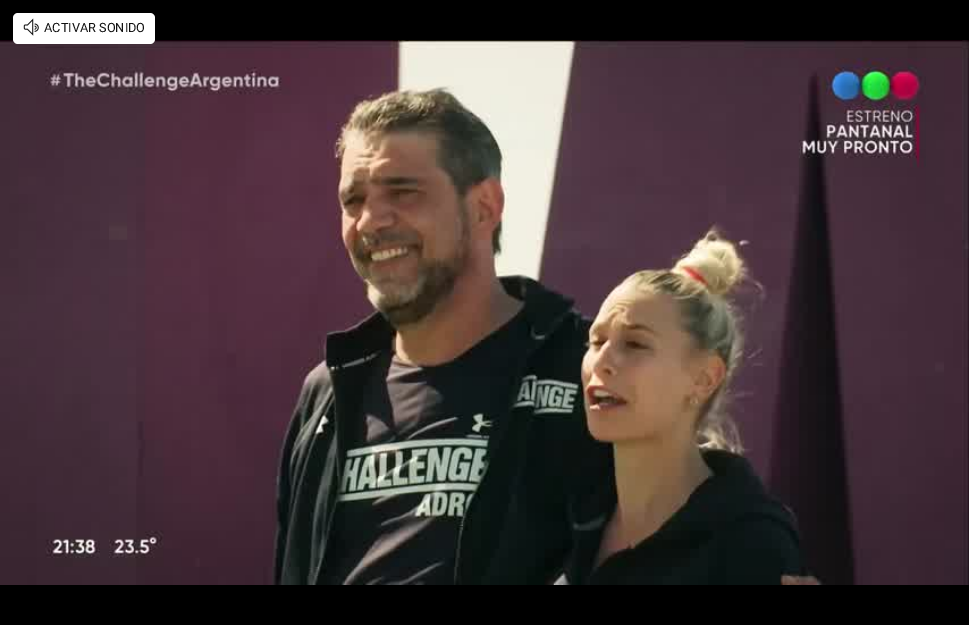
%!PS
<< /PageSize [969 625] >> setpagedevice
/roundrect { 5 dict begin { /r /h /w /y /x } { exch def } forall
  x r add y moveto x w add y 2 copy h add r arct x w add y h add x 1 index r arct
  x y h add x y r arct x y 2 copy exch w add exch r arct closepath end } def
/picture { 5 dict begin { /h /w /y /x /name } { exch def } forall
  gsave x y translate w h scale
  w h 8 [w 0 0 h 0 0] name (r) file false 3 colorimage grestore end } def
0 625 translate 1 -1 scale
4 setmiterlimit
0 setgray
0 0 969 625 rectfill
(img2.rgb) 0 40 969 545 picture
1 setgray
13 13 142 31 5 roundrect fill
(img1.rgb) 23 18 16 18 picture
/Roboto-Regular [12.75 0 0 -12.75 0 0] selectfont
0.071 setgray
44 32 moveto (ACTIVAR SONIDO) show
showpage
